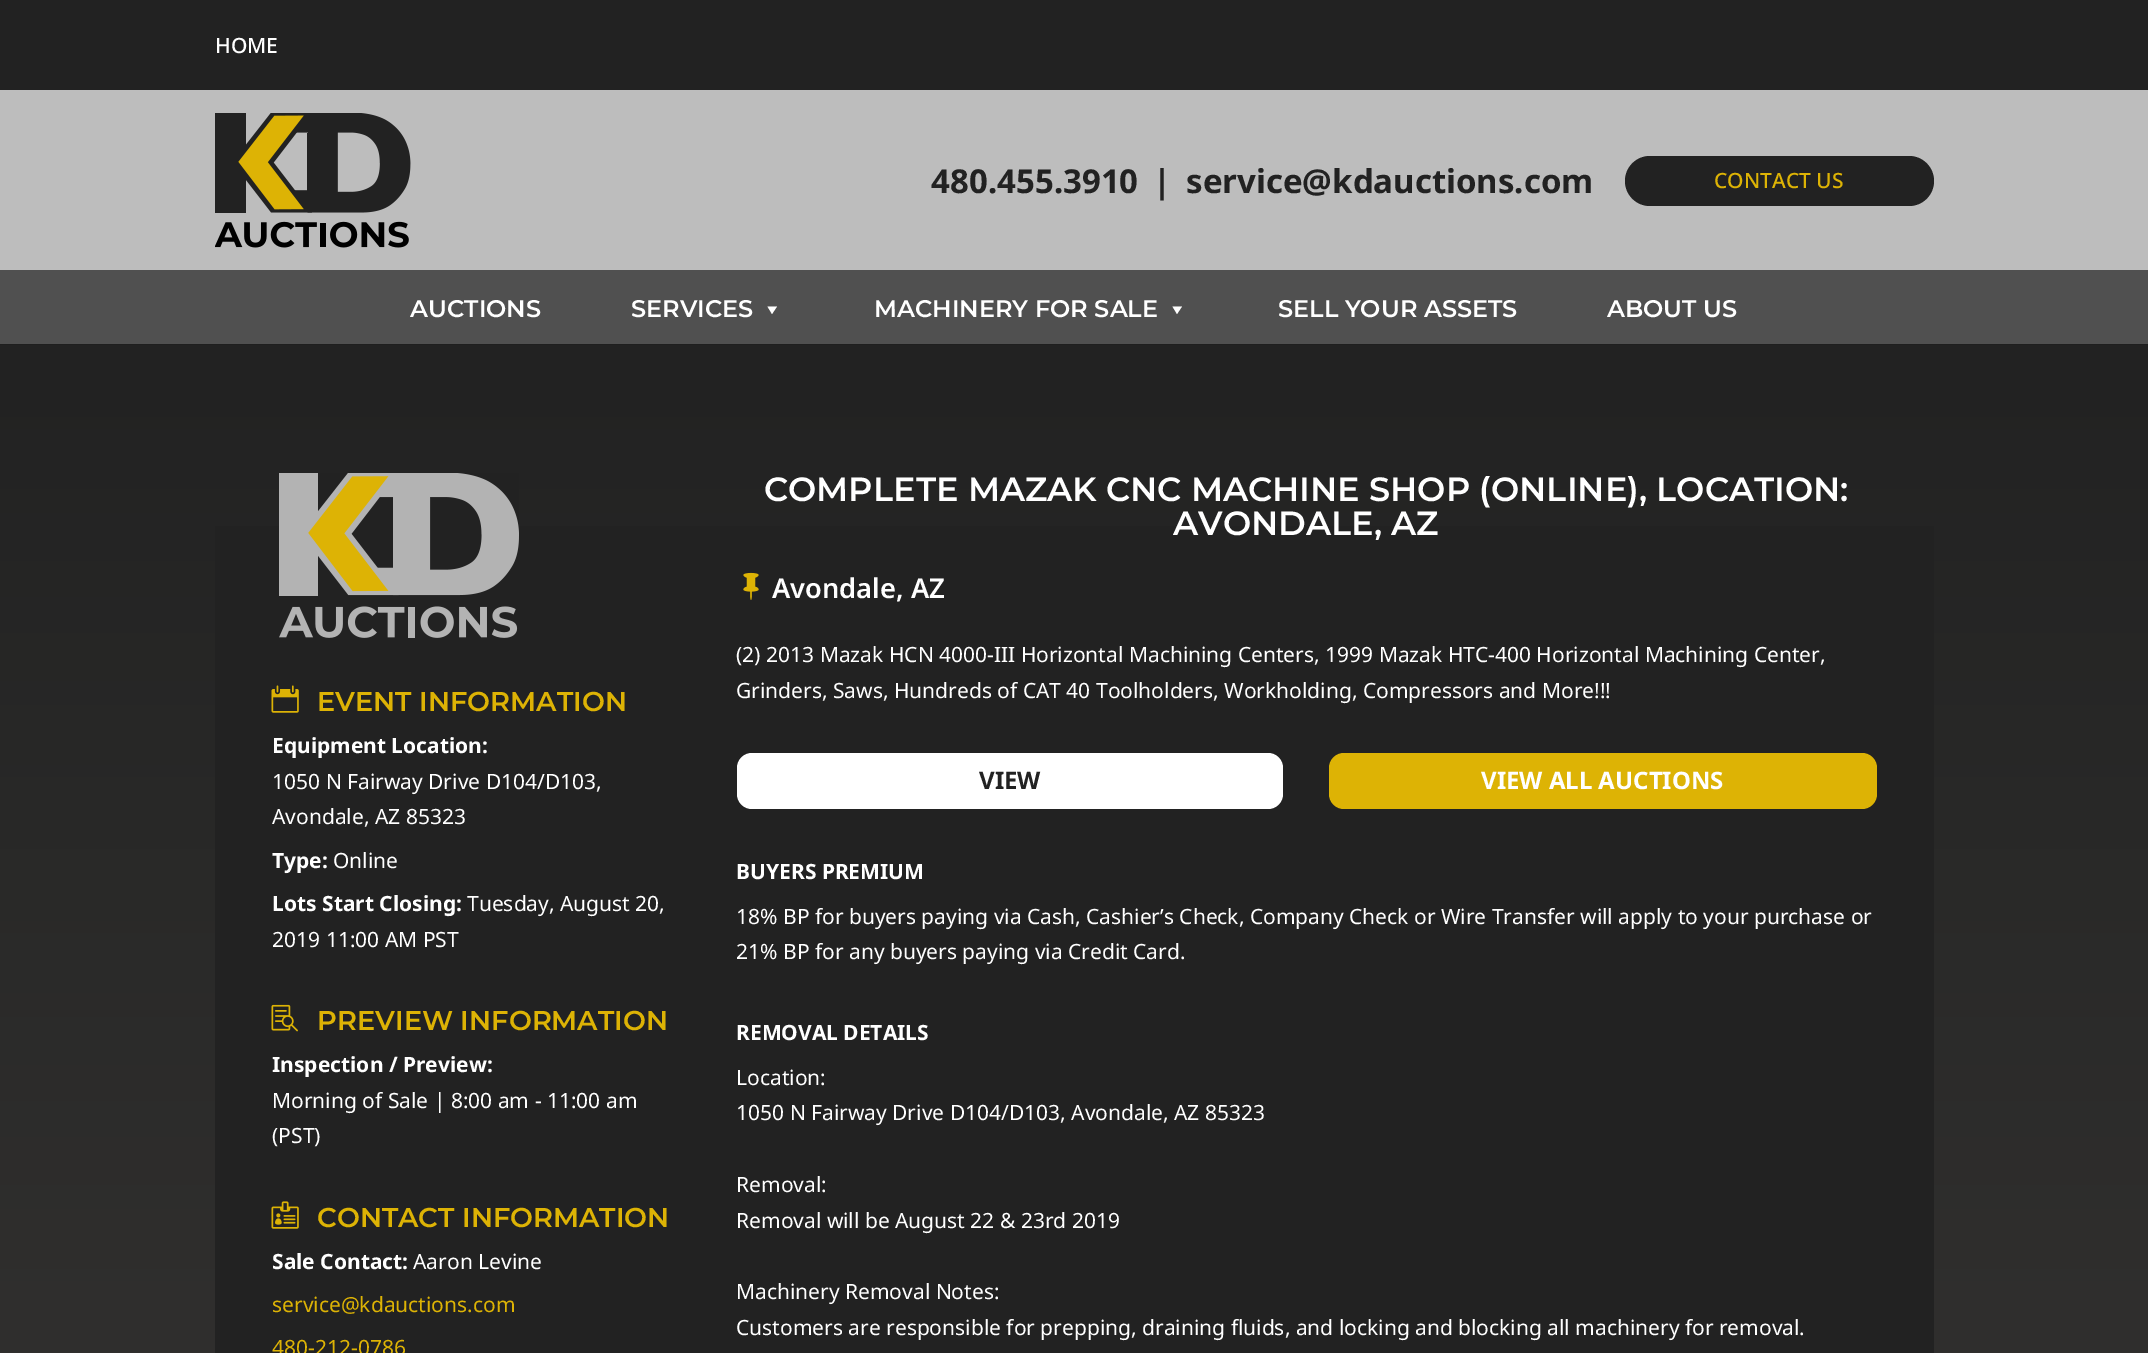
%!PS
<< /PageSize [2148 1353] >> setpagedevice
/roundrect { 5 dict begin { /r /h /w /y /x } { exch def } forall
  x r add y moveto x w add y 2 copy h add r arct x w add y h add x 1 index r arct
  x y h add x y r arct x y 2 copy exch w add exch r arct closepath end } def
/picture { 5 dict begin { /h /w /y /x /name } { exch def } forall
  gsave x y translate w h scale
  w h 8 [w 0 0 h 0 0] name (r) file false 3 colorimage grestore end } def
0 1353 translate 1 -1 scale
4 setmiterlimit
1 setgray
0 0 2148 1353 rectfill
0.133 setgray
0 0 2148 90 rectfill
/NotoSans-Medium [21 0 0 -21 0 0] selectfont
1 setgray
215 53 moveto (HOME) show
0.122 setgray
0 344 2148 1 rectfill
0.741 setgray
0 90 2148 180 rectfill
(img1.rgb) 215 113 196 135 picture
/NotoSans-Bold [33 0 0 -33 0 0] selectfont
0.133 setgray
931 193 moveto (480.455.3910) show
1153 193 moveto (|) show
1186 193 moveto (service@kdauctions.com) show
1625 156 309 50 25 roundrect fill
/NotoSans-Medium [21 0 0 -21 0 0] selectfont
0.867 0.702 0.02 setrgbcolor
1714 188 moveto (CONTACT US) show
0.314 setgray
0 270 2148 74 rectfill
/Montserrat-SemiBold [24 0 0 -24 0 0] selectfont
1 setgray
410 317 moveto (AUCTIONS) show
631 317 moveto (SERVICES) show
newpath 777 306.5 moveto 772 314 lineto 767.5 306.5 lineto closepath fill
874 317 moveto (MACHINERY FOR SALE) show
newpath 1182 306.5 moveto 1177 314 lineto 1172.5 306.5 lineto closepath fill
1278 317 moveto (SELL YOUR ASSETS) show
1607 317 moveto (ABOUT US) show
gsave newpath 0 345 moveto 2148 345 lineto 2148 1353 lineto 0 1353 lineto closepath clip newpath
<< /ShadingType 2 /ColorSpace /DeviceRGB /Coords [1074 344 1074 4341] /Extend [true true] /Function << /FunctionType 2 /Domain [0 1] /C0 [0.133 0.133 0.133] /C1 [0.349 0.341 0.325] /N 1 >> >> shfill grestore
0.133 setgray
215 526 1719 827 rectfill
(img2.rgb) 279 473 240 165 picture
(img3.rgb) 271 685 28 28 picture
/Montserrat-SemiBold [27.25 0 0 -27.25 0 0] selectfont
0.867 0.702 0.02 setrgbcolor
317 711 moveto (EVENT INFORMATION) show
/NotoSans-Bold [21 0 0 -21 0 0] selectfont
1 setgray
272 753 moveto (Equipment Location:) show
/NotoSans-Regular [21 0 0 -21 0 0] selectfont
272 789 moveto (1050 N Fairway Drive D104/D103,) show
272 824 moveto (Avondale, AZ 85323) show
/NotoSans-Bold [21 0 0 -21 0 0] selectfont
272 868 moveto (Type:) show
/NotoSans-Regular [21 0 0 -21 0 0] selectfont
333 868 moveto (Online) show
/NotoSans-Bold [21 0 0 -21 0 0] selectfont
272 911 moveto (Lots Start Closing:) show
/NotoSans-Regular [21 0 0 -21 0 0] selectfont
467 911 moveto (Tuesday, August 20,) show
272 947 moveto (2019 11:00 AM PST) show
(img4.rgb) 271 1004 27 28 picture
/Montserrat-SemiBold [27.25 0 0 -27.25 0 0] selectfont
0.867 0.702 0.02 setrgbcolor
317 1030 moveto (PREVIEW INFORMATION) show
/NotoSans-Bold [21 0 0 -21 0 0] selectfont
1 setgray
272 1072 moveto (Inspection / Preview:) show
/NotoSans-Regular [21 0 0 -21 0 0] selectfont
272 1108 moveto (Morning of Sale | 8:00 am - 11:00 am) show
272 1143 moveto (\(PST\)) show
(img5.rgb) 271 1201 28 28 picture
/Montserrat-SemiBold [27.25 0 0 -27.25 0 0] selectfont
0.867 0.702 0.02 setrgbcolor
317 1227 moveto (CONTACT INFORMATION) show
/NotoSans-Bold [21 0 0 -21 0 0] selectfont
1 setgray
272 1269 moveto (Sale Contact:) show
/NotoSans-Regular [21 0 0 -21 0 0] selectfont
413 1269 moveto (Aaron Levine) show
0.867 0.702 0.02 setrgbcolor
272 1312 moveto (service@kdauctions.com) show
272 1355 moveto (480-212-0786) show
/Montserrat-SemiBold [33.6 0 0 -33.6 0 0] selectfont
1 setgray
764 501 moveto (COMPLETE MAZAK CNC MACHINE SHOP \(ONLINE\), LOCATION:) show
1173 535 moveto (AVONDALE, AZ) show
(img6.rgb) 743 572 16 28 picture
/NotoSans-SemiBold [27.25 0 0 -27.25 0 0] selectfont
772 598 moveto (Avondale, AZ) show
/NotoSans-Regular [21 0 0 -21 0 0] selectfont
736 662 moveto (\(2\) 2013 Mazak HCN 4000-III Horizontal Machining Centers, 1999 Mazak HTC-400 Horizontal Machining Center,) show
736 698 moveto (Grinders, Saws, Hundreds of CAT 40 Toolholders, Workholding, Compressors and More!!!) show
737 753 546 56 15 roundrect fill
/NotoSans-Bold [24 0 0 -24 0 0] selectfont
0.133 setgray
979 789 moveto (VIEW) show
0.867 0.702 0.02 setrgbcolor
1329 753 548 56 15 roundrect fill
1 setgray
1481 789 moveto (VIEW ALL AUCTIONS) show
/NotoSans-Bold [21 0 0 -21 0 0] selectfont
736 879 moveto (BUYERS PREMIUM) show
/NotoSans-Regular [21 0 0 -21 0 0] selectfont
736 924 moveto (18% BP for buyers paying via Cash, Cashier’s Check, Company Check or Wire Transfer will apply to your purchase or) show
736 959 moveto (21% BP for any buyers paying via Credit Card.) show
/NotoSans-Bold [21 0 0 -21 0 0] selectfont
736 1040 moveto (REMOVAL DETAILS) show
/NotoSans-Regular [21 0 0 -21 0 0] selectfont
736 1085 moveto (Location:) show
736 1120 moveto (1050 N Fairway Drive D104/D103, Avondale, AZ 85323) show
736 1192 moveto (Removal:) show
736 1228 moveto (Removal will be August 22 & 23rd 2019) show
736 1299 moveto (Machinery Removal Notes:) show
736 1335 moveto (Customers are responsible for prepping, draining fluids, and locking and blocking all machinery for removal.) show
showpage
